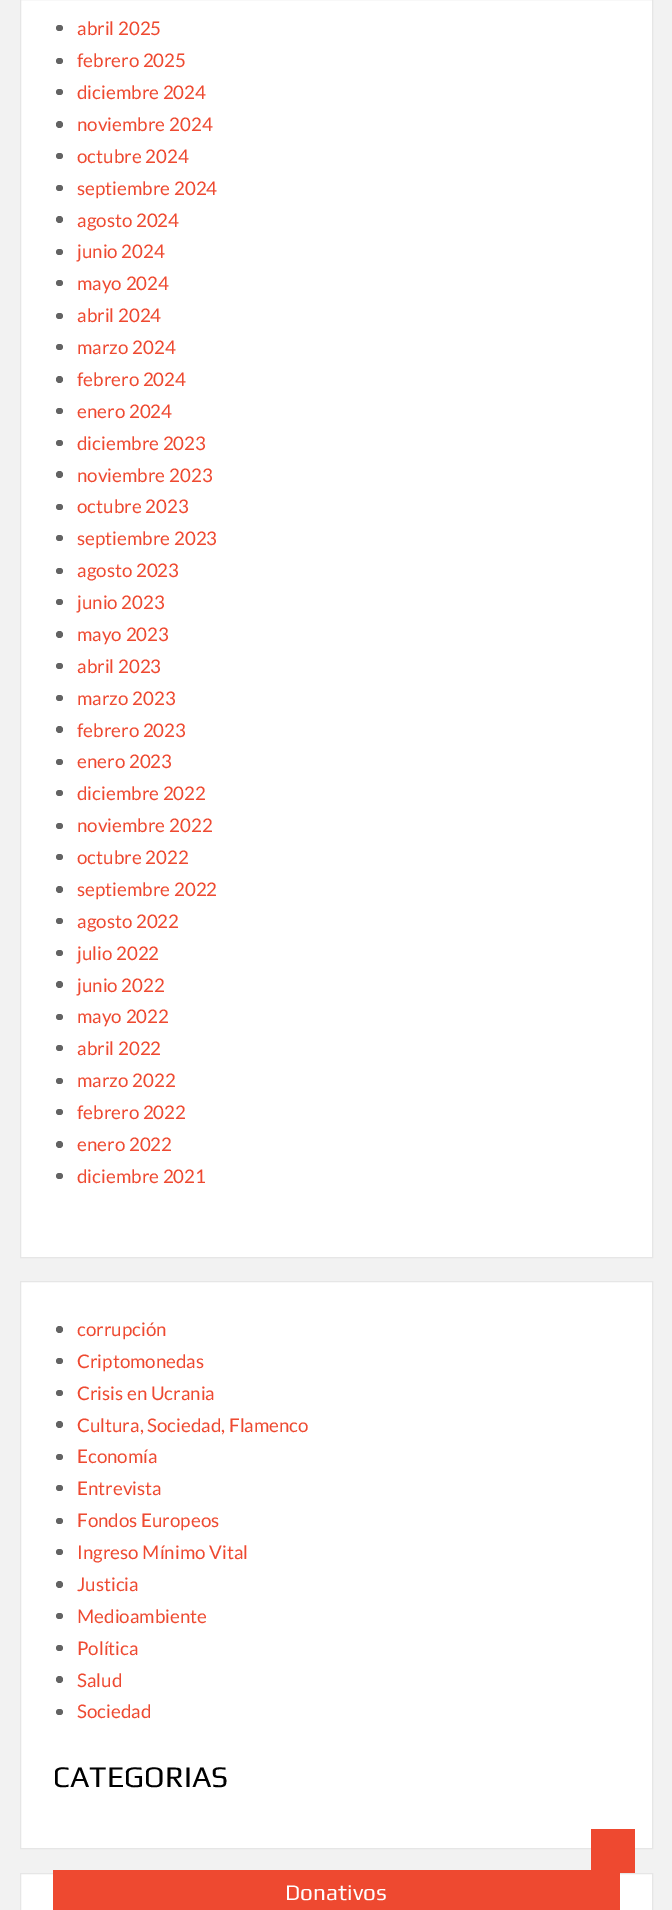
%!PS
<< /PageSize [672 1910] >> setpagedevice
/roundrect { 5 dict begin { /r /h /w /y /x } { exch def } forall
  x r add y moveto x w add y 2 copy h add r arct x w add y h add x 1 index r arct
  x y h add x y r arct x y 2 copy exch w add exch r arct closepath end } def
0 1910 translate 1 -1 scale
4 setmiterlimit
0.949 setgray
0 0 672 1910 rectfill
1 setgray
newpath 20.5 -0.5 moveto 652.5 -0.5 lineto 652.5 1257.5 lineto 20.5 1257.5 lineto closepath gsave fill grestore
0.902 setgray
stroke
0.388 setgray
56 25 7 6 3 roundrect fill
/Lato-Regular [18.75 0 0 -18.75 0 0] selectfont
0.933 0.286 0.188 setrgbcolor
77 35 moveto (abril 2025) show
0.388 setgray
56 58 7 6 3 roundrect fill
0.933 0.286 0.188 setrgbcolor
77 67 moveto (febrero 2025) show
0.388 setgray
56 89 7 6 3 roundrect fill
0.933 0.286 0.188 setrgbcolor
77 99 moveto (diciembre 2024) show
0.388 setgray
newpath 59.5 124.5 3.5 0 360 arc closepath fill
0.933 0.286 0.188 setrgbcolor
77 131 moveto (noviembre 2024) show
0.388 setgray
56 153 7 6 3 roundrect fill
0.933 0.286 0.188 setrgbcolor
77 163 moveto (octubre 2024) show
0.388 setgray
56 185 7 6 3 roundrect fill
0.933 0.286 0.188 setrgbcolor
77 195 moveto (septiembre 2024) show
0.388 setgray
newpath 59.5 219.5 3.5 0 360 arc closepath fill
0.933 0.286 0.188 setrgbcolor
77 227 moveto (agosto 2024) show
0.388 setgray
56 249 7 6 3 roundrect fill
0.933 0.286 0.188 setrgbcolor
77 258 moveto (junio 2024) show
0.388 setgray
56 280 7 6 3 roundrect fill
0.933 0.286 0.188 setrgbcolor
77 290 moveto (mayo 2024) show
0.388 setgray
56 313 7 6 3 roundrect fill
0.933 0.286 0.188 setrgbcolor
77 322 moveto (abril 2024) show
0.388 setgray
56 344 7 6 3 roundrect fill
0.933 0.286 0.188 setrgbcolor
77 354 moveto (marzo 2024) show
0.388 setgray
newpath 59.5 379.5 3.5 0 360 arc closepath fill
0.933 0.286 0.188 setrgbcolor
77 386 moveto (febrero 2024) show
0.388 setgray
56 408 7 6 3 roundrect fill
0.933 0.286 0.188 setrgbcolor
77 418 moveto (enero 2024) show
0.388 setgray
56 440 7 6 3 roundrect fill
0.933 0.286 0.188 setrgbcolor
77 450 moveto (diciembre 2023) show
0.388 setgray
newpath 59.5 474.5 3.5 0 360 arc closepath fill
0.933 0.286 0.188 setrgbcolor
77 482 moveto (noviembre 2023) show
0.388 setgray
56 504 7 6 3 roundrect fill
0.933 0.286 0.188 setrgbcolor
77 513 moveto (octubre 2023) show
0.388 setgray
56 535 7 6 3 roundrect fill
0.933 0.286 0.188 setrgbcolor
77 545 moveto (septiembre 2023) show
0.388 setgray
56 568 7 6 3 roundrect fill
0.933 0.286 0.188 setrgbcolor
77 577 moveto (agosto 2023) show
0.388 setgray
56 599 7 6 3 roundrect fill
0.933 0.286 0.188 setrgbcolor
77 609 moveto (junio 2023) show
0.388 setgray
newpath 59.5 634.5 3.5 0 360 arc closepath fill
0.933 0.286 0.188 setrgbcolor
77 641 moveto (mayo 2023) show
0.388 setgray
56 663 7 6 3 roundrect fill
0.933 0.286 0.188 setrgbcolor
77 673 moveto (abril 2023) show
0.388 setgray
56 695 7 6 3 roundrect fill
0.933 0.286 0.188 setrgbcolor
77 705 moveto (marzo 2023) show
0.388 setgray
newpath 59.5 729.5 3.5 0 360 arc closepath fill
0.933 0.286 0.188 setrgbcolor
77 737 moveto (febrero 2023) show
0.388 setgray
56 759 7 6 3 roundrect fill
0.933 0.286 0.188 setrgbcolor
77 768 moveto (enero 2023) show
0.388 setgray
56 790 7 6 3 roundrect fill
0.933 0.286 0.188 setrgbcolor
77 800 moveto (diciembre 2022) show
0.388 setgray
56 823 7 6 3 roundrect fill
0.933 0.286 0.188 setrgbcolor
77 832 moveto (noviembre 2022) show
0.388 setgray
56 854 7 6 3 roundrect fill
0.933 0.286 0.188 setrgbcolor
77 864 moveto (octubre 2022) show
0.388 setgray
newpath 59.5 889.5 3.5 0 360 arc closepath fill
0.933 0.286 0.188 setrgbcolor
77 896 moveto (septiembre 2022) show
0.388 setgray
56 918 7 6 3 roundrect fill
0.933 0.286 0.188 setrgbcolor
77 928 moveto (agosto 2022) show
0.388 setgray
56 950 7 6 3 roundrect fill
0.933 0.286 0.188 setrgbcolor
77 960 moveto (julio 2022) show
0.388 setgray
newpath 59.5 984.5 3.5 0 360 arc closepath fill
0.933 0.286 0.188 setrgbcolor
77 992 moveto (junio 2022) show
0.388 setgray
56 1014 7 6 3 roundrect fill
0.933 0.286 0.188 setrgbcolor
77 1023 moveto (mayo 2022) show
0.388 setgray
56 1045 7 6 3 roundrect fill
0.933 0.286 0.188 setrgbcolor
77 1055 moveto (abril 2022) show
0.388 setgray
56 1078 7 6 3 roundrect fill
0.933 0.286 0.188 setrgbcolor
77 1087 moveto (marzo 2022) show
0.388 setgray
56 1109 7 6 3 roundrect fill
0.933 0.286 0.188 setrgbcolor
77 1119 moveto (febrero 2022) show
0.388 setgray
newpath 59.5 1144.5 3.5 0 360 arc closepath fill
0.933 0.286 0.188 setrgbcolor
77 1151 moveto (enero 2022) show
0.388 setgray
56 1173 7 6 3 roundrect fill
0.933 0.286 0.188 setrgbcolor
77 1183 moveto (diciembre 2021) show
1 setgray
newpath 20.5 1281.5 moveto 652.5 1281.5 lineto 652.5 1848.5 lineto 20.5 1848.5 lineto closepath gsave fill grestore
0.902 setgray
stroke
0.388 setgray
newpath 59.5 1329.5 3.5 0 360 arc closepath fill
0.933 0.286 0.188 setrgbcolor
77 1336 moveto (corrupción) show
0.388 setgray
56 1358 7 6 3 roundrect fill
0.933 0.286 0.188 setrgbcolor
77 1368 moveto (Criptomonedas) show
0.388 setgray
56 1390 7 6 3 roundrect fill
0.933 0.286 0.188 setrgbcolor
77 1400 moveto (Crisis en Ucrania) show
0.388 setgray
newpath 59.5 1424.5 3.5 0 360 arc closepath fill
0.933 0.286 0.188 setrgbcolor
77 1432 moveto (Cultura, Sociedad, Flamenco) show
0.388 setgray
56 1454 7 6 3 roundrect fill
0.933 0.286 0.188 setrgbcolor
77 1463 moveto (Economía) show
0.388 setgray
56 1485 7 6 3 roundrect fill
0.933 0.286 0.188 setrgbcolor
77 1495 moveto (Entrevista) show
0.388 setgray
56 1518 7 6 3 roundrect fill
0.933 0.286 0.188 setrgbcolor
77 1527 moveto (Fondos Europeos) show
0.388 setgray
56 1549 7 6 3 roundrect fill
0.933 0.286 0.188 setrgbcolor
77 1559 moveto (Ingreso Mínimo Vital) show
0.388 setgray
newpath 59.5 1584.5 3.5 0 360 arc closepath fill
0.933 0.286 0.188 setrgbcolor
77 1591 moveto (Justicia) show
0.388 setgray
56 1613 7 6 3 roundrect fill
0.933 0.286 0.188 setrgbcolor
77 1623 moveto (Medioambiente) show
0.388 setgray
56 1645 7 6 3 roundrect fill
0.933 0.286 0.188 setrgbcolor
77 1655 moveto (Política) show
0.388 setgray
newpath 59.5 1679.5 3.5 0 360 arc closepath fill
0.933 0.286 0.188 setrgbcolor
77 1687 moveto (Salud) show
0.388 setgray
56 1709 7 6 3 roundrect fill
0.933 0.286 0.188 setrgbcolor
77 1718 moveto (Sociedad) show
/Play-Regular [30 0 0 -30 0 0] selectfont
0 setgray
53 1787 moveto (CATEGORIAS) show
1 setgray
newpath 20.5 1873.5 moveto 652.5 1873.5 lineto 652.5 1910.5 lineto 20.5 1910.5 lineto closepath gsave fill grestore
0.902 setgray
stroke
0.933 0.286 0.188 setrgbcolor
53 1870 567 40 rectfill
/Play-Regular [22.5 0 0 -22.5 0 0] selectfont
1 setgray
285 1900 moveto (Donativos) show
0.933 0.286 0.188 setrgbcolor
591 1829 44 44 rectfill
showpage
